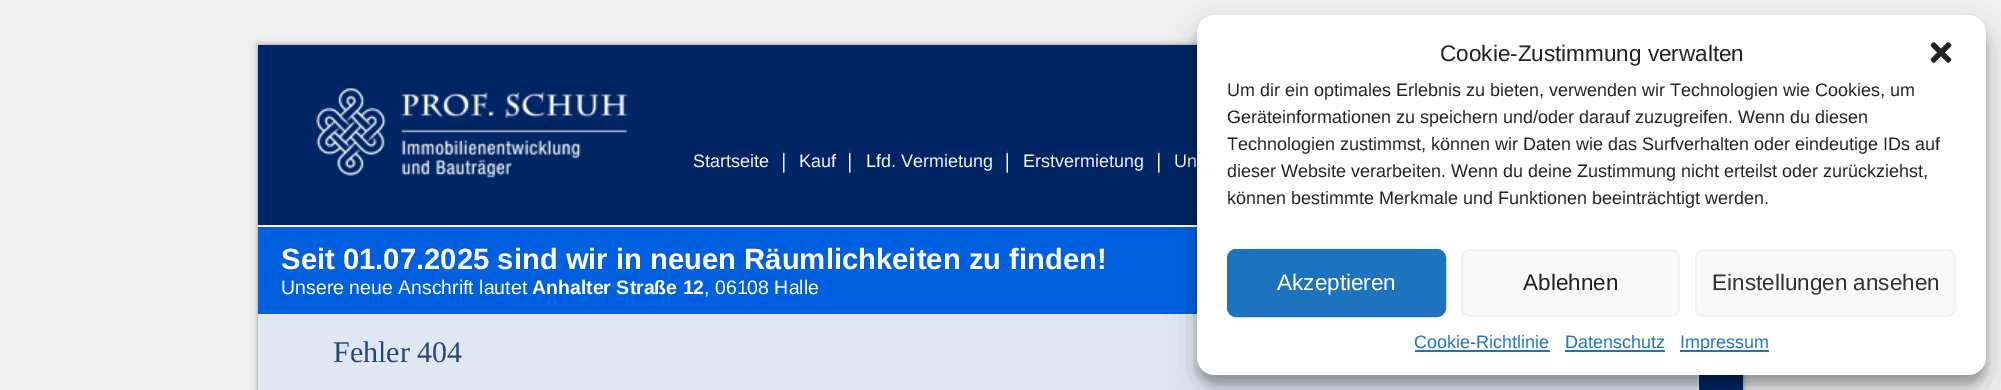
%!PS
<< /PageSize [2001 390] /PageUsesTransparency true >> setpagedevice
/alpha { dup .setfillconstantalpha .setstrokeconstantalpha } def
/roundrect { 5 dict begin { /r /h /w /y /x } { exch def } forall
  x r add y moveto x w add y 2 copy h add r arct x w add y h add x 1 index r arct
  x y h add x y r arct x y 2 copy exch w add exch r arct closepath end } def
/shadow { 12 dict begin { /a /b /q /h /w /y /x } { exch def } forall gsave /was 0 def
  9 -2 -9 { dup b mul 4 div /e exch def 1 sub .425 mul 2.718 exch exp 1 add a .99 .min exch div /now exch def
    1 1 now sub 1 was sub div sub alpha /was now def
    w h .min e 2 mul add 0 gt { x e sub y e sub w e 2 mul add h e 2 mul add
      q e add b .6 mul add w h .min 2 div e add .min 0 .max roundrect fill } if } for grestore end } def
/picture { 5 dict begin { /h /w /y /x /name } { exch def } forall
  gsave x y translate w h scale
  w h 8 [w 0 0 h 0 0] name (r) file false 3 colorimage grestore end } def
0 .pushpdf14devicefilter
0 390 translate 1 -1 scale
4 setmiterlimit
0.941 setgray
0 0 2001 390 rectfill
0 setgray
258 45 1485 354 0 3 0.4 shadow
1 setgray
258 225 1441 165 rectfill
0 0.145 0.396 setrgbcolor
1699 375 44 15 rectfill
258 45 939 180 rectfill
(img1.rgb) 316 88 312 90 picture
(img2.rgb) 783 150 2 26 picture
/LiberationSans-Regular [18 0 0 -18 0 0] selectfont
0.973 setgray
693 167 moveto (Startseite) show
(img2.rgb) 849 150 2 26 picture
799 167 moveto (Kauf) show
(img3.rgb) 1006 150 2 26 picture
866 167 moveto (Lfd. Vermietung) show
(img2.rgb) 1158 150 2 26 picture
1023 167 moveto (Erstvermietung) show
1174 167 moveto (Un) show
0 0.376 0.875 setrgbcolor
258 227 939 87 rectfill
/LiberationSans-Bold [29.25 0 0 -29.25 0 0] selectfont
1 setgray
281 269 moveto (Seit 01.07.2025 sind wir in neuen Räumlichkeiten zu finden!) show
/LiberationSans-Regular [19.5 0 0 -19.5 0 0] selectfont
281 294 moveto (Unsere neue Anschrift lautet) show
/LiberationSans-Bold [19.5 0 0 -19.5 0 0] selectfont
532 294 moveto (Anhalter Straße 12) show
/LiberationSans-Regular [19.5 0 0 -19.5 0 0] selectfont
704 294 moveto (, 06108 Halle) show
0.882 0.906 0.949 setrgbcolor
258 314 1440 76 rectfill
/LiberationSerif-Regular [30 0 0 -30 0 0] selectfont
0.145 0.278 0.478 setrgbcolor
333 362 moveto (Fehler 404) show
0 setgray
1197 24 789 360 18 4.5 0.23 shadow
1197 30 789 360 18 15 0.19 shadow
1 setgray
1197 15 789 360 18 roundrect fill
/LiberationSans-Regular [22.5 0 0 -22.5 0 0] selectfont
0.133 setgray
1440 61 moveto (Cookie-Zustimmung verwalten) show
(img4.rgb) 1930 42 22 21 picture
/LiberationSans-Regular [18 0 0 -18 0 0] selectfont
1227 96 moveto (Um dir ein optimales Erlebnis zu bieten, verwenden wir Technologien wie Cookies, um) show
1227 123 moveto (Geräteinformationen zu speichern und/oder darauf zuzugreifen. Wenn du diesen) show
1227 150 moveto (Technologien zustimmst, können wir Daten wie das Surfverhalten oder eindeutige IDs auf) show
1227 177 moveto (dieser Website verarbeiten. Wenn du deine Zustimmung nicht erteilst oder zurückziehst,) show
1227 204 moveto (können bestimmte Merkmale und Funktionen beeinträchtigt werden.) show
0.118 0.451 0.745 setrgbcolor
1228 250 217 66 8 roundrect gsave fill grestore
2 setlinewidth
stroke
/LiberationSans-Regular [22.5 0 0 -22.5 0 0] selectfont
1 setgray
1277 290 moveto (Akzeptieren) show
0.976 setgray
1462 250 217 66 8 roundrect gsave fill grestore
0.949 setgray
stroke
0.133 setgray
1523 290 moveto (Ablehnen) show
0.976 setgray
1696 250 259 66 8 roundrect gsave fill grestore
0.949 setgray
stroke
0.2 setgray
1712 290 moveto (Einstellungen ansehen) show
/LiberationSans-Regular [18 0 0 -18 0 0] selectfont
0.118 0.451 0.745 setrgbcolor
1414 348 moveto (Cookie-Richtlinie) show
1415 350 135 2 rectfill
1565 348 moveto (Datenschutz) show
1565 350 100 2 rectfill
1680 350 89 2 rectfill
1680 348 moveto (Impressum) show
.poppdf14devicefilter showpage
